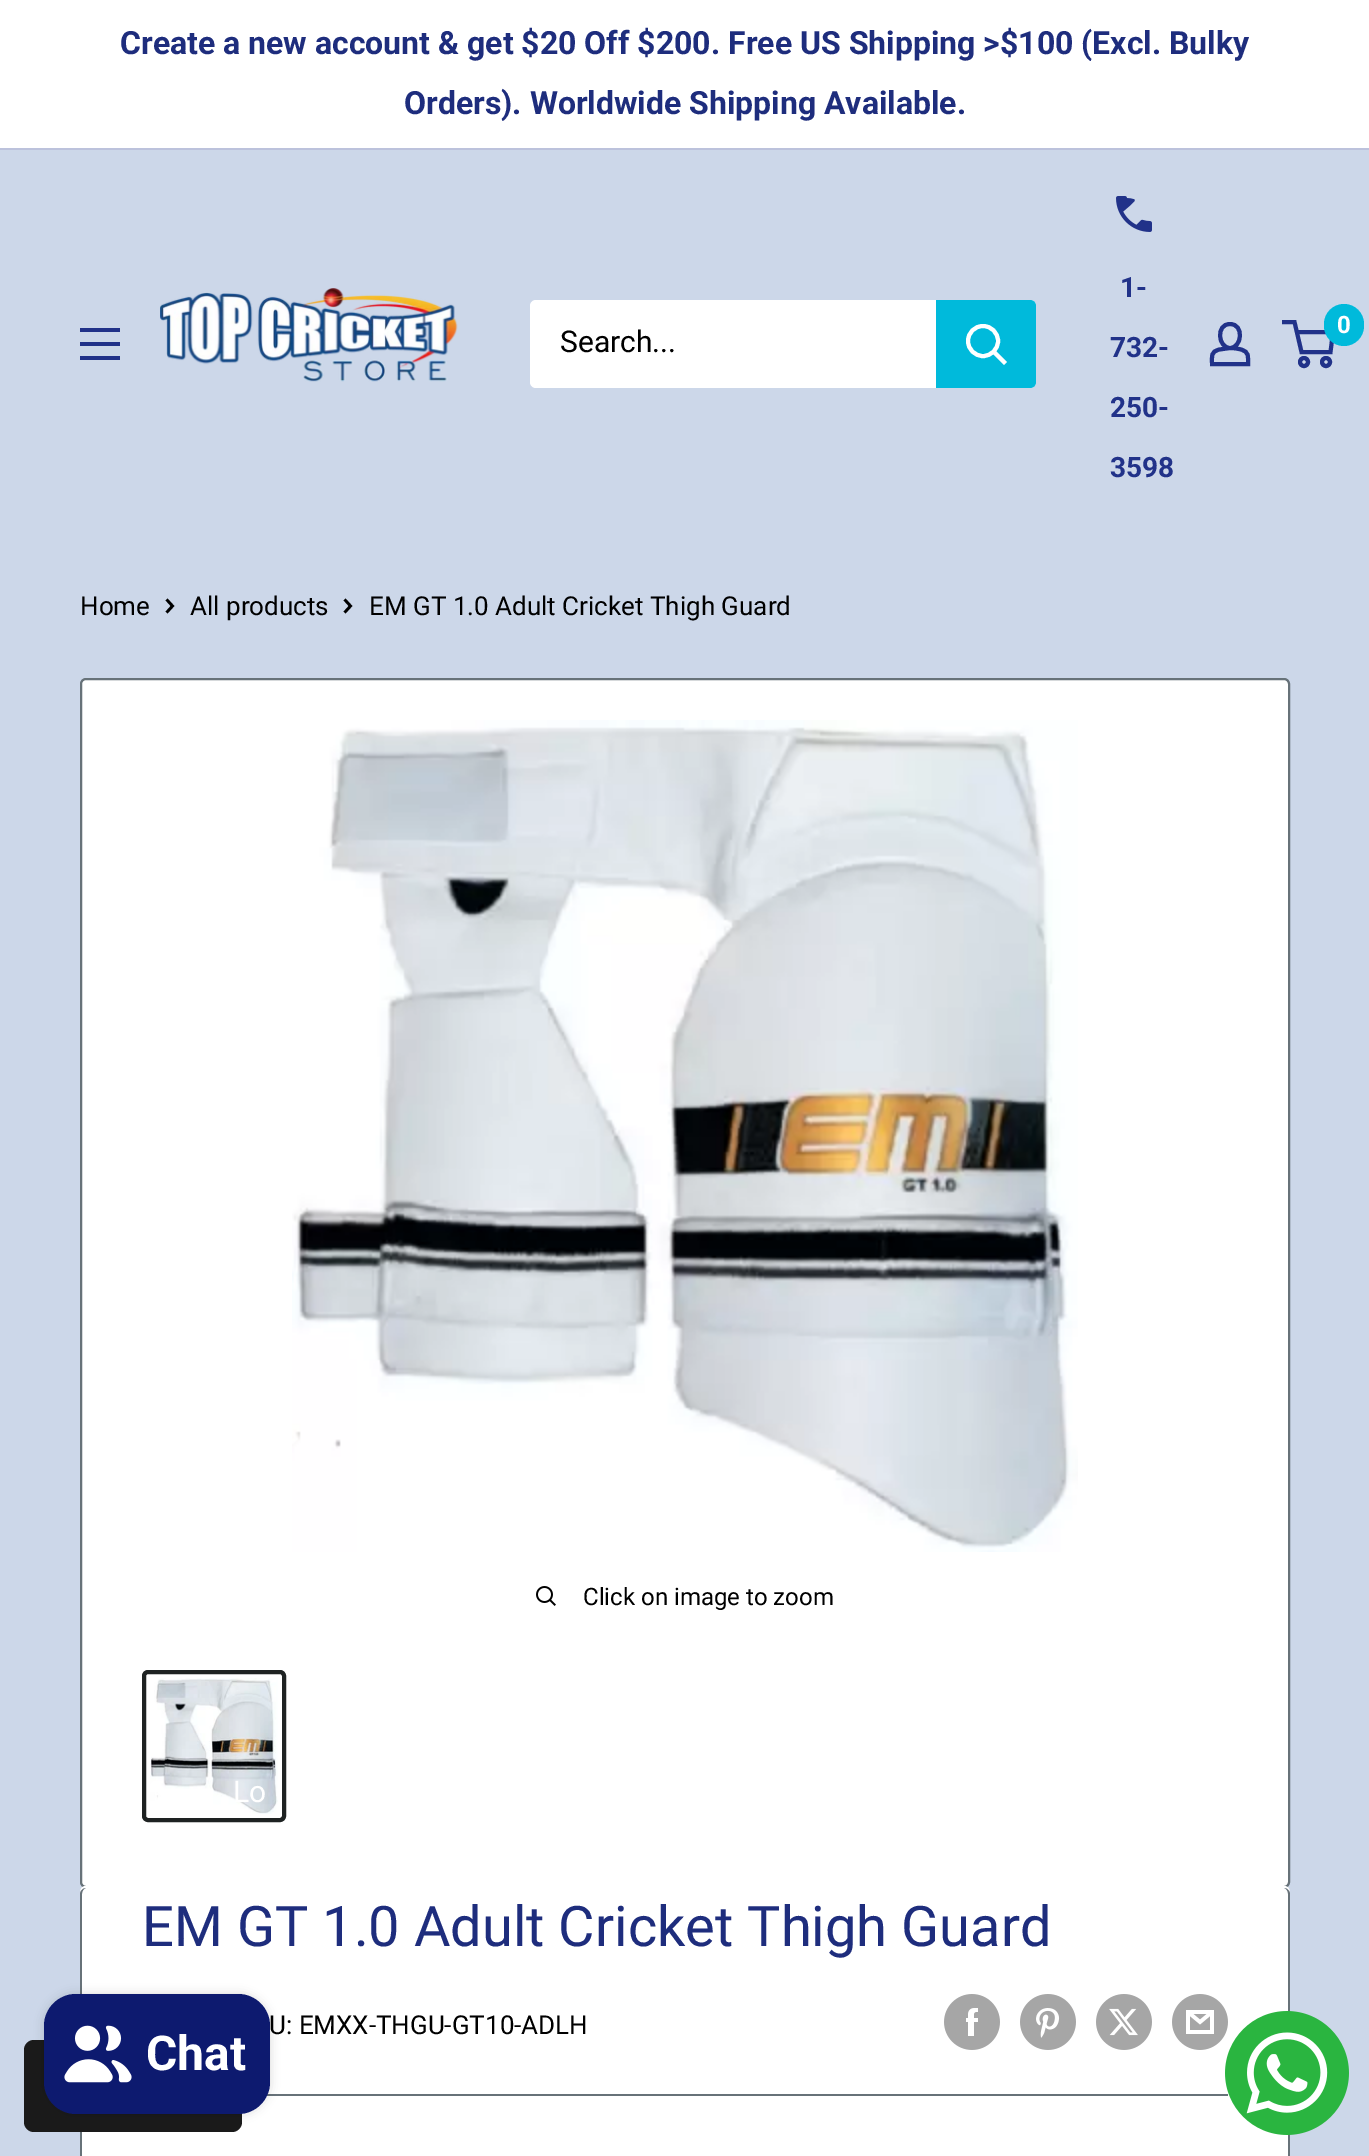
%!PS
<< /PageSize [1369 2156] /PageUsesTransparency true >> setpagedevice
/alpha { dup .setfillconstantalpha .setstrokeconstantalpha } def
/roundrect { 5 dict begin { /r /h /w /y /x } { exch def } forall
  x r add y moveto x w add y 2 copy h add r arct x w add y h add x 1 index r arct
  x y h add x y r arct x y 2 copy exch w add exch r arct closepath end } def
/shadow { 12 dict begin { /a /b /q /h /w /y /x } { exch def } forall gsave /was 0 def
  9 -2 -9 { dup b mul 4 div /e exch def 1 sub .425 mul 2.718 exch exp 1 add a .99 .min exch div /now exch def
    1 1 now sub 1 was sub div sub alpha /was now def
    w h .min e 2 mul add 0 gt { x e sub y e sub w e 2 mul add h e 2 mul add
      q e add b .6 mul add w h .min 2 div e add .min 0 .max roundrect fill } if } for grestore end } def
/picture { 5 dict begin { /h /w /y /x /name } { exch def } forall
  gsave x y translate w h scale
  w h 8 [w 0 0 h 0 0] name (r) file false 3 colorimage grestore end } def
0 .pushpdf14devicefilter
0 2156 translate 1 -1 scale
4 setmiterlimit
0.8 0.843 0.914 setrgbcolor
0 0 1369 2156 rectfill
1 setgray
0 0 1369 148 rectfill
0.737 0.761 0.863 setrgbcolor
0 148 1369 2 rectfill
/Roboto-Bold [32 0 0 -32 0 0] selectfont
0.118 0.176 0.49 setrgbcolor
120 54 moveto (Create a new account & get $20 Off $200. Free US Shipping >$100 \(Excl. Bulky) show
404 114 moveto (Orders\). Worldwide Shipping Available.) show
0.129 0.196 0.537 setrgbcolor
newpath 80 356 moveto 120 356 lineto 120 360 lineto 80 360 lineto closepath 80 328 moveto 120 328 lineto 120 332 lineto 80 332 lineto closepath 80 342 moveto 120 342 lineto 120 346 lineto 80 346 lineto closepath eofill
(img1.rgb) 160 288 298 94 picture
1 setgray
530 300 506 88 6 roundrect fill
/Roboto-Regular [30 0 0 -30 0 0] selectfont
0 setgray
560 352 moveto (Search...) show
0 0.729 0.859 setrgbcolor
newpath 936 300 moveto 1030 300 lineto 1033.5 300 1036 302.5 1036 306 curveto 1036 382 lineto 1036 385.5 1033.5 388 1030 388 curveto 936 388 lineto closepath fill
1 setgray
4 setlinewidth
2 setlinecap
newpath 1004 362 moveto 994 352 lineto stroke
0 setlinecap
newpath 983 341 15 0 360 arc closepath stroke
(img2.rgb) 1116 196 36 36 picture
/Roboto-Bold [28 0 0 -28 0 0] selectfont
0.129 0.196 0.537 setrgbcolor
1120 297 moveto (1-) show
1110 357 moveto (732-) show
1110 417 moveto (250-) show
1110 477 moveto (3598) show
newpath 1230 348 moveto 1234 348 1237.5 348.5 1241 349.5 curveto 1249.5 352 1248 356.5 1248 364 curveto 1212 364 lineto 1212 356 1210.5 351.5 1219.5 349.5 curveto closepath 1230 348 moveto 1218 348 1215.5 324 1230 324 curveto 1244.5 324 1242 348 1230 348 curveto closepath stroke
newpath 1304 362 4 0 360 arc closepath stroke
newpath 1326 362 4 0 360 arc closepath stroke
newpath 1296.5 332 moveto 1333 332 lineto 1330.5 352 lineto 1301.5 352 lineto 1294.5 322 lineto 1282 322 lineto stroke
0 0.729 0.859 setrgbcolor
1324 304 40 42 20 roundrect fill
/Roboto-Bold [24 0 0 -24 0 0] selectfont
1 setgray
1337 333 moveto (0) show
/Roboto-Regular [26 0 0 -26 0 0] selectfont
0 setgray
80 615 moveto (Home) show
2.7 setlinewidth
2 setlinecap
newpath 167.5 600.5 moveto 172.5 606 lineto 167.5 611.5 lineto stroke
190 615 moveto (All products) show
newpath 345.5 600.5 moveto 350.5 606 lineto 345.5 611.5 lineto stroke
369 615 moveto (EM GT 1.0 Adult Cricket Thigh Guard) show
1 setgray
81 679 1208 1208 5 roundrect gsave fill grestore
0.404 0.447 0.475 setrgbcolor
2 setlinewidth
0 setlinecap
stroke
(img3.rgb) 292 720 786 832 picture
(img4.rgb) 536 1586 20 20 picture
/Roboto-Regular [24 0 0 -24 0 0] selectfont
0 setgray
583 1605 moveto (Click on image to zoom) show
0.118 0.133 0.133 setrgbcolor
4 setlinewidth
144 1672 140 148 4 roundrect stroke
(img5.rgb) 150 1678 128 136 picture
1 setgray
newpath 86 1886 moveto 81 1886 80 1890 80 1894 curveto 80 1891 83 1888 86 1888 curveto 1284 1888 lineto 1287 1888 1290 1891 1290 1894 curveto 1290 1890 1289 1886 1284 1886 curveto closepath fill
80 1888 1210 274 6 roundrect fill
0.404 0.447 0.475 setrgbcolor
newpath 86 1888 moveto 1284 1888 lineto 1287 1888 1290 1891 1290 1894 curveto 1290 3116 lineto 1290 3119 1287 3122 1284 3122 curveto 86 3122 lineto 83 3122 80 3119 80 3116 curveto 80 1894 lineto 80 1891 83 1888 86 1888 curveto closepath 86 1888 moveto 1284 1888 lineto 1286 1888 1288 1891 1288 1894 curveto 1288 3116 lineto 1288 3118 1286 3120 1284 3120 curveto 86 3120 lineto 84 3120 82 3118 82 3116 curveto 82 1894 lineto 82 1891 84 1888 86 1888 curveto closepath eofill
/Roboto-Regular [56 0 0 -56 0 0] selectfont
0.118 0.176 0.49 setrgbcolor
142 1946 moveto (EM GT 1.0 Adult Cricket Thigh Guard) show
/Roboto-Regular [26 0 0 -26 0 0] selectfont
0 setgray
269 2034 moveto (U: EMXX-THGU-GT10-ADLH) show
(img6.rgb) 944 1994 56 56 picture
(img7.rgb) 1020 1994 56 56 picture
(img8.rgb) 1096 1994 56 56 picture
(img9.rgb) 1172 1994 56 56 picture
0.404 0.447 0.475 setrgbcolor
266 2094 962 2 rectfill
/Roboto-Regular [30 0 0 -30 0 0] selectfont
1 setgray
233 1802 moveto (Lo) show
0.102 setgray
24 2040 218 92 10 roundrect fill
0 setgray
44 1994 226 120 32 5 0.15 shadow
0.051 0.102 0.435 setrgbcolor
44 1994 226 120 32 roundrect fill
(img10.rgb) 64 2025 68 58 picture
/Roboto-Bold [48 0 0 -48 0 0] selectfont
1 setgray
146 2070 moveto (Chat) show
(img11.rgb) 1225 2011 124 124 picture
.poppdf14devicefilter showpage
